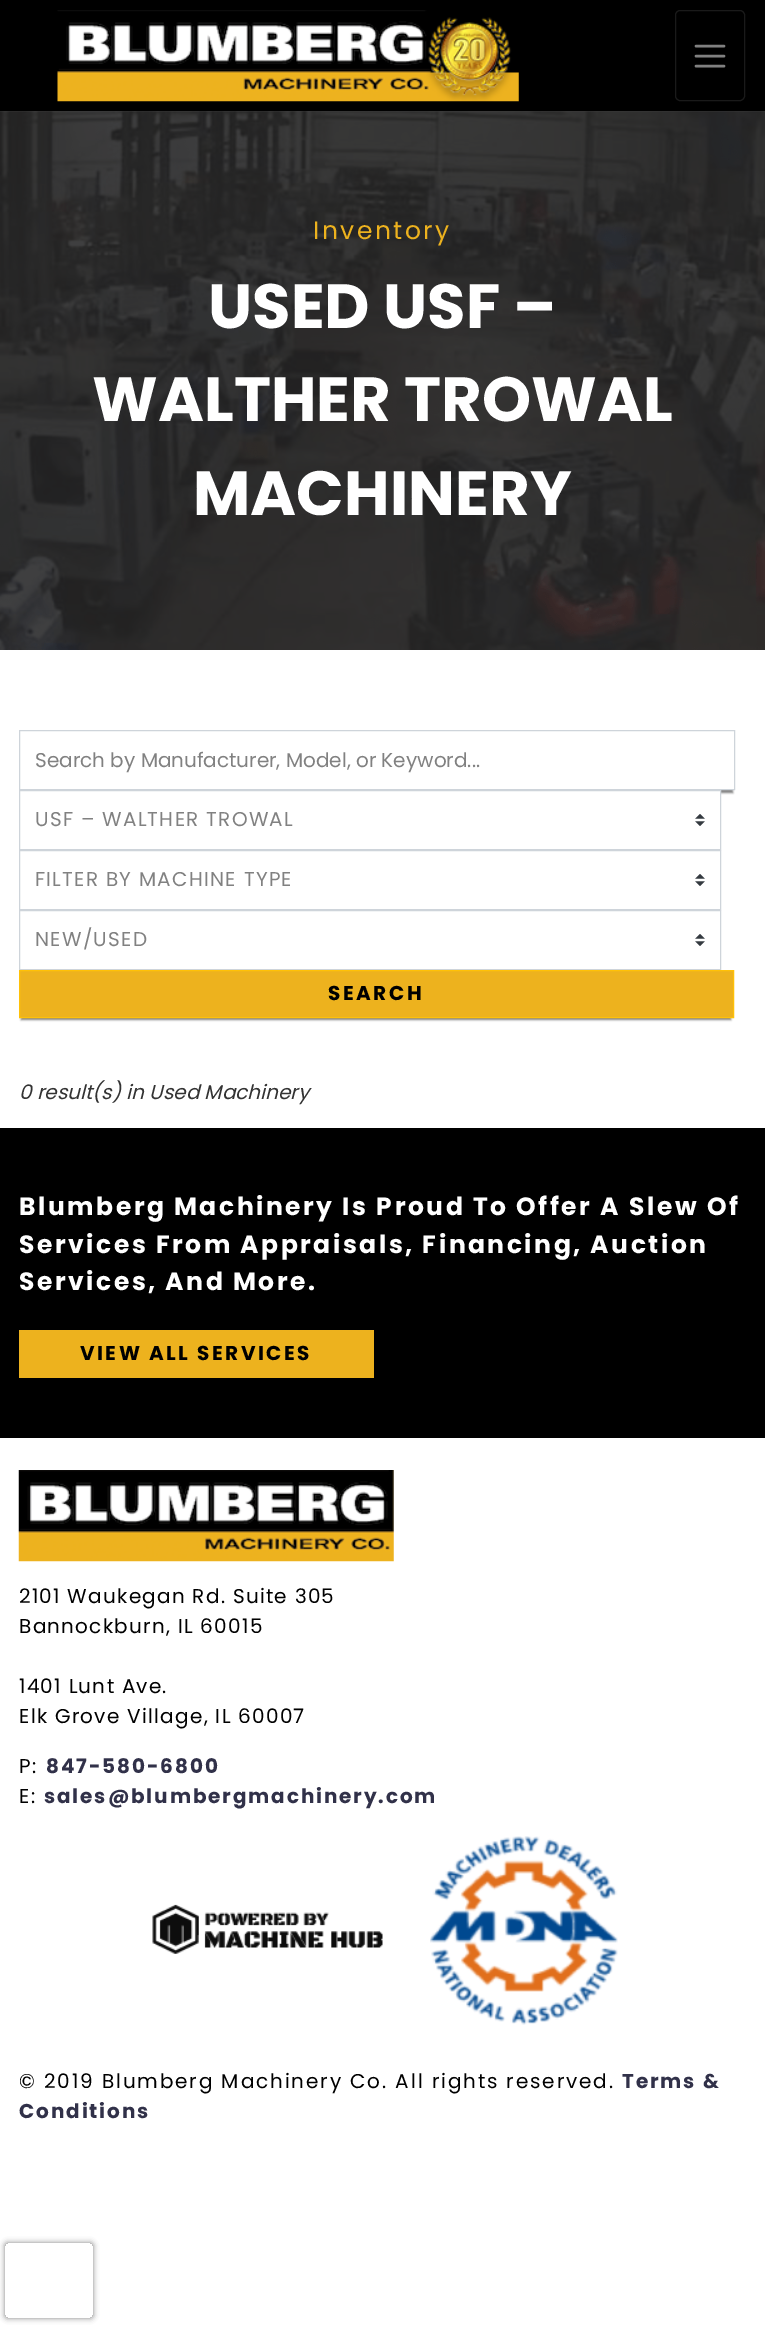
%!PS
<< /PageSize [765 2335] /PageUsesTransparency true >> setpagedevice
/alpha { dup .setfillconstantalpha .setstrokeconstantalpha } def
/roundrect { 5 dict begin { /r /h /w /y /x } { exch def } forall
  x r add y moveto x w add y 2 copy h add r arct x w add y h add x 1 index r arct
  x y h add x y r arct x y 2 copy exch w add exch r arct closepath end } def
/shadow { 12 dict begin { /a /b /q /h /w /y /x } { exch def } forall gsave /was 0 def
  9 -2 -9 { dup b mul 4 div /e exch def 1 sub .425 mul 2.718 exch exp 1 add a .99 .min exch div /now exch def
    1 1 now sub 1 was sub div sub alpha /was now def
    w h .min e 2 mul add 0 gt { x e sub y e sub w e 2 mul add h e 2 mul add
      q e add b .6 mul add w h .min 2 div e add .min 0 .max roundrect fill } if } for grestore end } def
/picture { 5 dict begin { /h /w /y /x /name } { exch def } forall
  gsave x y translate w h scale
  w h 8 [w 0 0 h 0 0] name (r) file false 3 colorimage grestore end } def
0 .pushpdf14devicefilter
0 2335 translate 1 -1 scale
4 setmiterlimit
1 setgray
0 0 765 2335 rectfill
0.251 setgray
0 111 765 539 rectfill
0 setgray
0 0 765 111 rectfill
(img1.rgb) 57 10 462 92 picture
0.102 setgray
675.5 10.5 69 90 4.5 roundrect stroke
0.502 setgray
2.5 setlinewidth
1 setlinecap
newpath 696 46 moveto 724 46 lineto 696 56 moveto 724 56 lineto 696 66 moveto 724 66 lineto stroke
(img2.rgb) 0 111 765 539 picture
/Poppins-Regular [25 0 0 -25 0 0] selectfont
0.929 0.698 0.118 setrgbcolor
313 239 moveto 2.5 0 (Inventory) ashow
/Poppins-Bold [62.5 0 0 -62.5 0 0] selectfont
1 setgray
208 328 moveto (USED USF –) show
92 421 moveto (WALTHER TROWAL) show
193 515 moveto (MACHINERY) show
gsave
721 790 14 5 rectclip
0.502 setgray
21 738 712 55 0 1 1 shadow
grestore
0.808 0.831 0.855 setrgbcolor
1 setlinewidth
0 setlinecap
19.5 730.5 715 59 rectstroke
/Poppins-Regular [20 0 0 -20 0 0] selectfont
0.506 setgray
35 767 moveto (Search by Manufacturer, Model, or Keyword...) show
1 setgray
20 791 700 4 rectfill
(img3.rgb) 695 814 10 12 picture
0.808 0.831 0.855 setrgbcolor
19.5 790.5 701 59 rectstroke
0.506 setgray
35 826 moveto 1.25 0 (USF – WALTHER TROWAL) ashow
(img3.rgb) 695 874 10 12 picture
0.808 0.831 0.855 setrgbcolor
19.5 850.5 701 59 rectstroke
0.506 setgray
35 886 moveto 1.25 0 (FILTER BY MACHINE TYPE) ashow
(img3.rgb) 695 934 10 12 picture
0.808 0.831 0.855 setrgbcolor
19.5 910.5 701 59 rectstroke
0.506 setgray
35 946 moveto 1.25 0 (NEW/USED) ashow
0.502 setgray
21 978 710 42 0 1 1 shadow
0.929 0.698 0.118 setrgbcolor
newpath 19.5 970.5 moveto 733.5 970.5 lineto 733.5 1017.5 lineto 19.5 1017.5 lineto closepath gsave fill grestore
1 0.757 0.027 setrgbcolor
stroke
/Poppins-Bold [20 0 0 -20 0 0] selectfont
0 setgray
328 1000 moveto 2.5 0 (SEARCH) ashow
/Poppins-Italic [20 0 0 -20 0 0] selectfont
0.2 setgray
19 1099 moveto (0 result\(s\) in Used Machinery) show
0 setgray
0 1128 765 310 rectfill
/Poppins-Bold [25 0 0 -25 0 0] selectfont
1 setgray
19 1215 moveto 2.5 0 (Blumberg Machinery Is Proud To Offer A Slew Of) ashow
19 1253 moveto 2.5 0 (Services From Appraisals, Financing, Auction) ashow
19 1290 moveto 2.5 0 (Services, And More.) ashow
0.929 0.698 0.118 setrgbcolor
19 1330 355 48 rectfill
/Poppins-Bold [20 0 0 -20 0 0] selectfont
0 setgray
80 1360 moveto 2.5 0 (VIEW ALL SERVICES) ashow
(img4.rgb) 18 1470 376 92 picture
/Poppins-Regular [20 0 0 -20 0 0] selectfont
19 1603 moveto 1.25 0 (2101 Waukegan Rd. Suite 305) ashow
19 1633 moveto 1.25 0 (Bannockburn, IL 60015) ashow
19 1693 moveto 1.25 0 (1401 Lunt Ave.) ashow
19 1723 moveto 1.25 0 (Elk Grove Village, IL 60007) ashow
19 1773 moveto 1.88 0 (P:) ashow
/Poppins-Bold [20 0 0 -20 0 0] selectfont
0.192 0.192 0.286 setrgbcolor
46 1773 moveto 1.88 0 (847-580-6800) ashow
/Poppins-Regular [20 0 0 -20 0 0] selectfont
0 setgray
19 1803 moveto 1.88 0 (E:) ashow
/Poppins-Bold [20 0 0 -20 0 0] selectfont
0.192 0.192 0.286 setrgbcolor
44 1803 moveto 1.88 0 (sales@blumbergmachinery.com) ashow
(img5.rgb) 152 1904 231 50 picture
(img6.rgb) 430 1836 188 189 picture
/Poppins-Regular [20 0 0 -20 0 0] selectfont
0 setgray
19 2088 moveto 1.88 0 (© 2019 Blumberg Machinery Co. All rights reserved.) ashow
/Poppins-Bold [20 0 0 -20 0 0] selectfont
0.192 0.192 0.286 setrgbcolor
622 2088 moveto 1.88 0 (Terms &) ashow
19 2118 moveto 1.88 0 (Conditions) ashow
gsave
newpath 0 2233 moveto 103 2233 lineto 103 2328 lineto 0 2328 lineto closepath 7.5 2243 moveto 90.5 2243 lineto 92 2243 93 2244 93 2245.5 curveto 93 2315.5 lineto 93 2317 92 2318 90.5 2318 curveto 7.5 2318 lineto 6 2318 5 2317 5 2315.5 curveto 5 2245.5 lineto 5 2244 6 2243 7.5 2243 curveto closepath eoclip newpath
0.502 setgray
5 2243 88 75 2.5 3 1 shadow
grestore
.poppdf14devicefilter showpage
